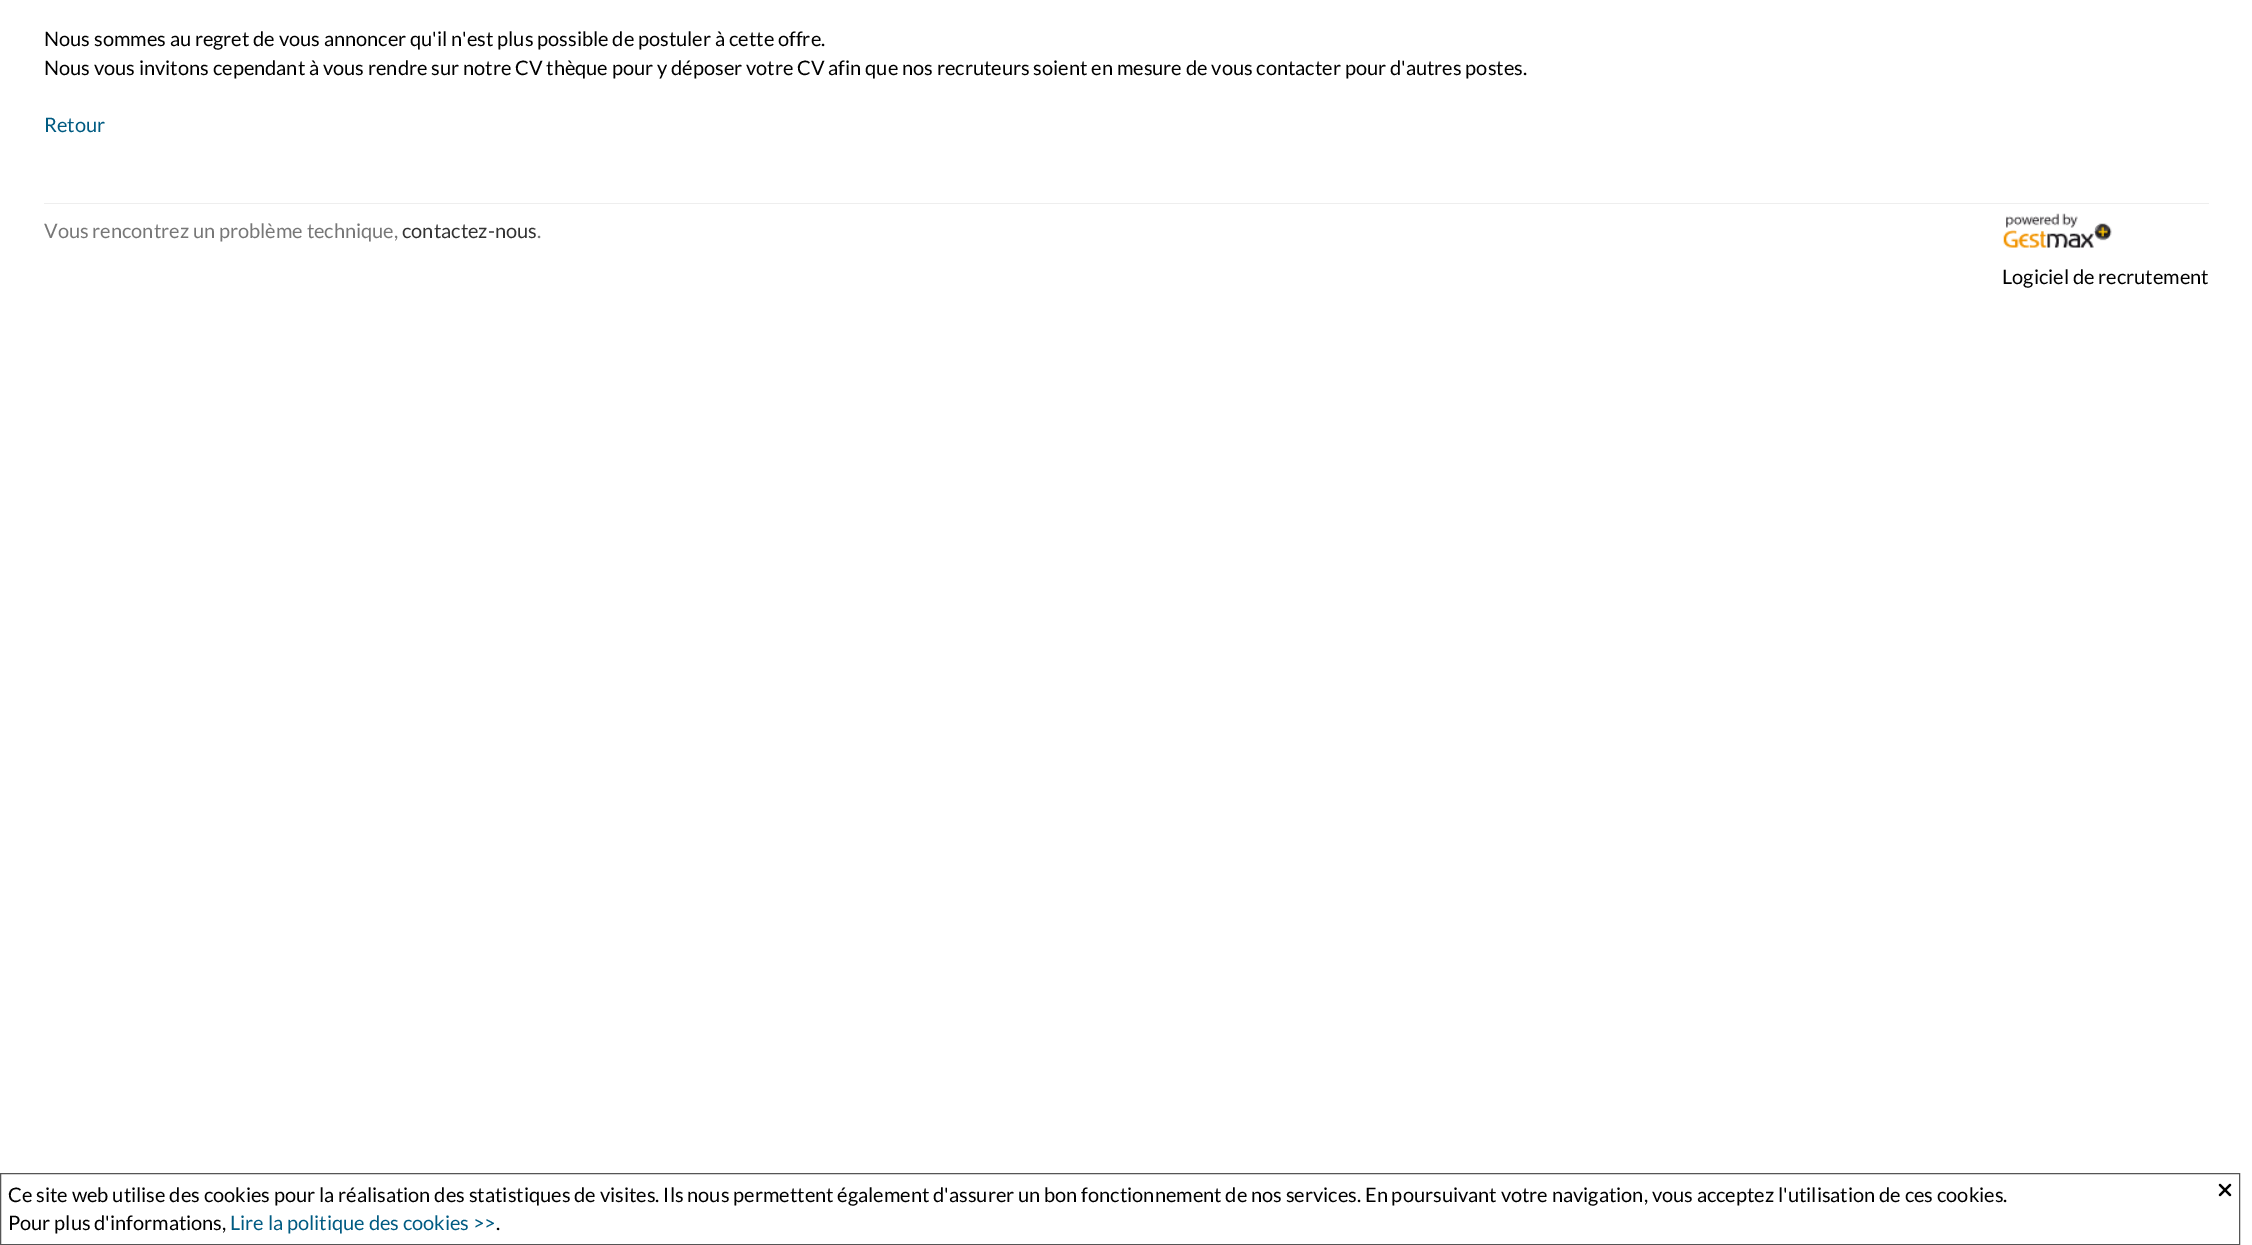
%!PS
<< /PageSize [2252 1245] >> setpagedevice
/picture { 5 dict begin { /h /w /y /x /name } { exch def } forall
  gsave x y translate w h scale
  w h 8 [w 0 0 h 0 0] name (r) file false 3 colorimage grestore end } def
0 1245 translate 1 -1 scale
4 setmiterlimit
1 setgray
0 0 2252 1245 rectfill
/Lato-Regular [20 0 0 -20 0 0] selectfont
0 setgray
44 46 moveto (Nous sommes au regret de vous annoncer qu'il n'est plus possible de postuler à cette offre.) show
44 75 moveto (Nous vous invitons cependant à vous rendre sur notre CV thèque pour y déposer votre CV afin que nos recruteurs soient en mesure de vous contacter pour d'autres postes.) show
0 0.357 0.51 setrgbcolor
44 132 moveto (Retour) show
0.933 setgray
44 203 2165 1 rectfill
0.467 setgray
44 238 moveto (Vous rencontrez un problème technique,) show
0.2 setgray
402 238 moveto (contactez-nous) show
0.467 setgray
537 238 moveto (.) show
(img1.rgb) 2003 213 109 35 picture
0 setgray
2002 284 moveto (Logiciel de recrutement) show
0.333 setgray
0.5 1173.5 2239 71 rectstroke
0 setgray
8 1202 moveto (Ce site web utilise des cookies pour la réalisation des statistiques de visites. Ils nous permettent également d'assurer un bon fonctionnement de nos services. En poursuivant votre navigation, vous acceptez l'utilisation de ces cookies.) show
(img2.rgb) 2218 1183 14 14 picture
8 1230 moveto (Pour plus d'informations,) show
0 0.357 0.51 setrgbcolor
230 1230 moveto (Lire la politique des cookies >>) show
0 setgray
496 1230 moveto (.) show
showpage
